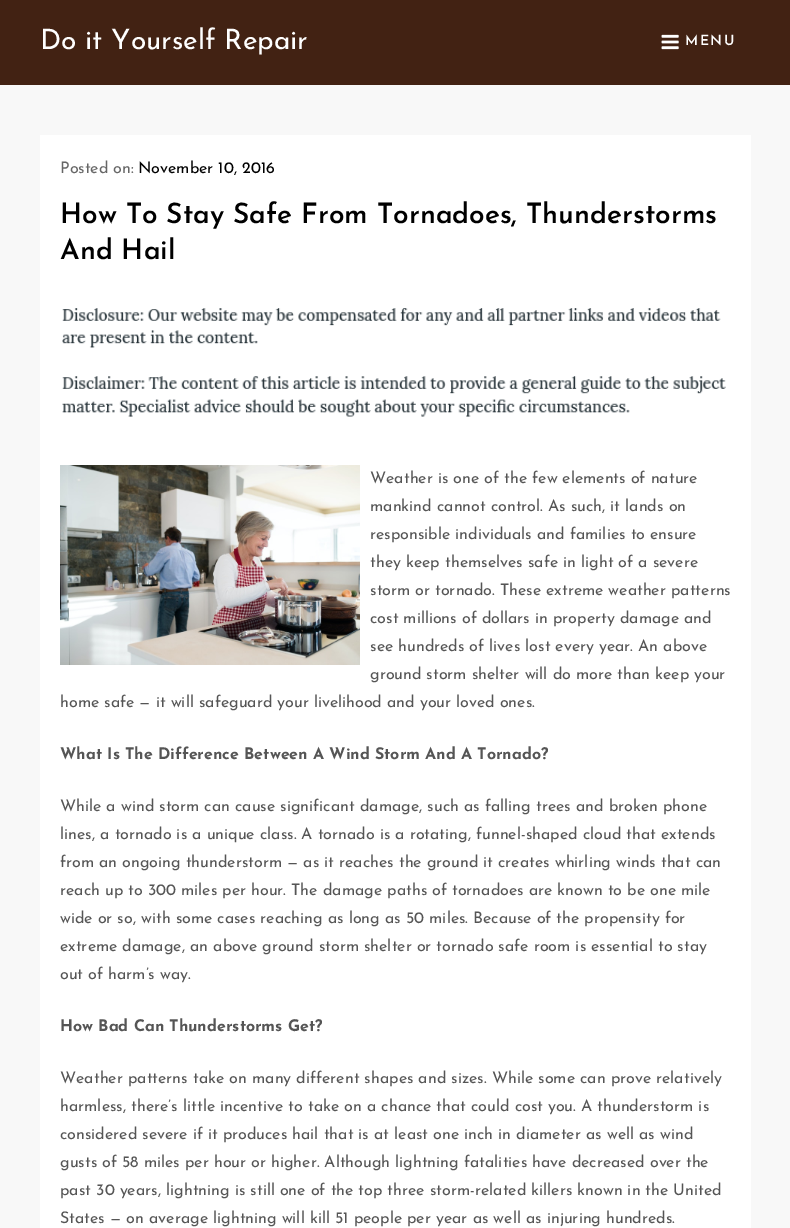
%!PS
<< /PageSize [790 1228] >> setpagedevice
/picture { 5 dict begin { /h /w /y /x /name } { exch def } forall
  gsave x y translate w h scale
  w h 8 [w 0 0 h 0 0] name (r) file false 3 colorimage grestore end } def
0 1228 translate 1 -1 scale
4 setmiterlimit
0.973 setgray
0 0 790 1228 rectfill
0.259 0.133 0.075 setrgbcolor
0 0 790 85 rectfill
/JosefinSans-Regular [28 0 0 -28 0 0] selectfont
1 setgray
40 49 moveto (Do it Yourself Repair) show
(img1.rgb) 661 34 18 16 picture
/JosefinSans-SemiBold [14 0 0 -14 0 0] selectfont
685 45 moveto 1.5 0 (MENU) ashow
40 135 711 1093 rectfill
/JosefinSans-Regular [16 0 0 -16 0 0] selectfont
0.4 setgray
60 173 moveto (Posted on:) show
0 setgray
138 173 moveto (November 10, 2016) show
/JosefinSans-SemiBold [28 0 0 -28 0 0] selectfont
60 223 moveto (How To Stay Safe From Tornadoes, Thunderstorms) show
60 259 moveto (And Hail) show
(img2.rgb) 62 308 664 109 picture
(img3.rgb) 60 465 300 200 picture
/JosefinSans-Regular [16 0 0 -16 0 0] selectfont
0.333 setgray
370 483 moveto (Weather is one of the few elements of nature) show
370 511 moveto (mankind cannot control. As such, it lands on) show
370 539 moveto (responsible individuals and families to ensure) show
370 567 moveto (they keep themselves safe in light of a severe) show
370 595 moveto (storm or tornado. These extreme weather patterns) show
370 623 moveto (cost millions of dollars in property damage and) show
370 651 moveto (see hundreds of lives lost every year. An above) show
370 679 moveto (ground storm shelter will do more than keep your) show
60 707 moveto (home safe — it will safeguard your livelihood and your loved ones.) show
/JosefinSans-Bold [16 0 0 -16 0 0] selectfont
60 759 moveto (What Is The Difference Between A Wind Storm And A Tornado?) show
/JosefinSans-Regular [16 0 0 -16 0 0] selectfont
60 811 moveto (While a wind storm can cause significant damage, such as falling trees and broken phone) show
60 839 moveto (lines, a tornado is a unique class. A tornado is a rotating, funnel-shaped cloud that extends) show
60 867 moveto (from an ongoing thunderstorm — as it reaches the ground it creates whirling winds that can) show
60 895 moveto (reach up to 300 miles per hour. The damage paths of tornadoes are known to be one mile) show
60 923 moveto (wide or so, with some cases reaching as long as 50 miles. Because of the propensity for) show
60 951 moveto (extreme damage, an above ground storm shelter or tornado safe room is essential to stay) show
60 979 moveto (out of harm’s way.) show
/JosefinSans-Bold [16 0 0 -16 0 0] selectfont
60 1031 moveto (How Bad Can Thunderstorms Get?) show
/JosefinSans-Regular [16 0 0 -16 0 0] selectfont
60 1083 moveto (Weather patterns take on many different shapes and sizes. While some can prove relatively) show
60 1111 moveto (harmless, there’s little incentive to take on a chance that could cost you. A thunderstorm is) show
60 1139 moveto (considered severe if it produces hail that is at least one inch in diameter as well as wind) show
60 1167 moveto (gusts of 58 miles per hour or higher. Although lightning fatalities have decreased over the) show
60 1195 moveto (past 30 years, lightning is still one of the top three storm-related killers known in the United) show
60 1223 moveto (States — on average lightning will kill 51 people per year as well as injuring hundreds.) show
showpage
